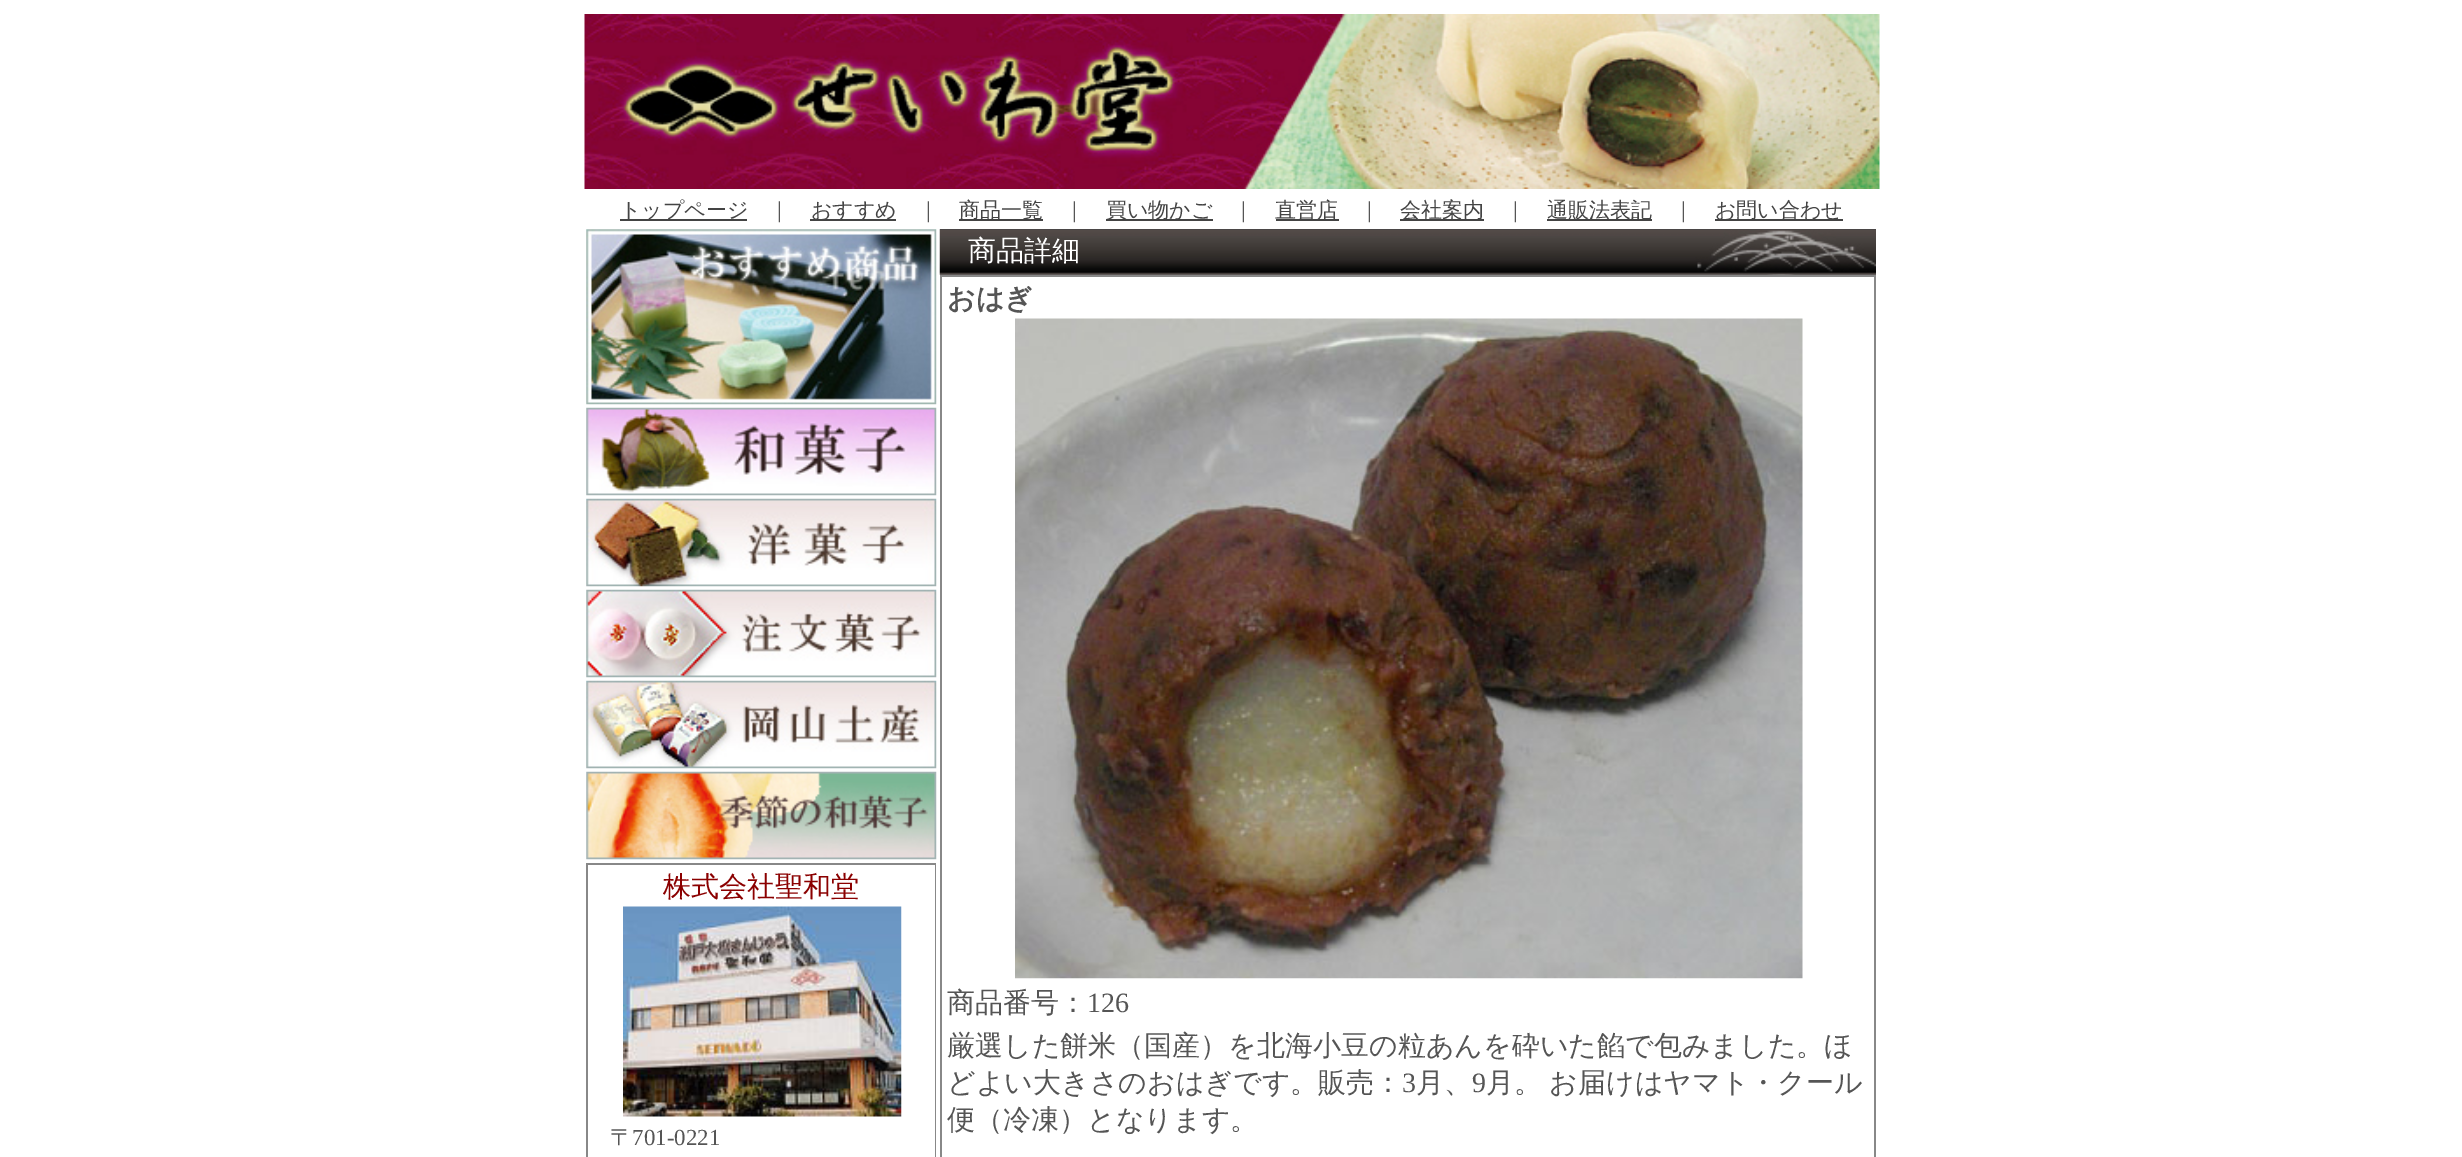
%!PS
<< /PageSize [2462 1157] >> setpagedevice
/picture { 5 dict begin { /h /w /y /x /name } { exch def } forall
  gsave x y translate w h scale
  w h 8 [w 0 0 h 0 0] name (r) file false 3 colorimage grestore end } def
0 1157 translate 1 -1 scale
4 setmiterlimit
1 setgray
0 0 2462 1157 rectfill
(img1.rgb) 584 14 1296 175 picture
0.267 setgray
620 219 127 2 rectfill
/WenQuanYiZenHei-Medium [21 0 0 -21 0 0] selectfont
620 217 moveto (トップページ) show
0.333 setgray
769 217 moveto (｜) show
0.267 setgray
810 219 86 2 rectfill
811 217 moveto (おすすめ) show
0.333 setgray
918 217 moveto (｜) show
0.267 setgray
959 219 84 2 rectfill
959 217 moveto (商品一覧) show
0.333 setgray
1064 217 moveto (｜) show
0.267 setgray
1106 219 107 2 rectfill
1106 217 moveto (買い物かご) show
0.333 setgray
1233 217 moveto (｜) show
0.267 setgray
1276 219 63 2 rectfill
1275 217 moveto (直営店) show
0.333 setgray
1359 217 moveto (｜) show
0.267 setgray
1400 219 84 2 rectfill
1400 217 moveto (会社案内) show
0.333 setgray
1505 217 moveto (｜) show
0.267 setgray
1547 219 105 2 rectfill
1547 217 moveto (通販法表記) show
0.333 setgray
1673 217 moveto (｜) show
0.267 setgray
1715 219 128 2 rectfill
1715 217 moveto (お問い合わせ) show
(img2.rgb) 586 229 351 176 picture
(img3.rgb) 586 407 351 89 picture
(img4.rgb) 586 498 351 89 picture
(img5.rgb) 586 589 351 89 picture
(img6.rgb) 586 680 351 89 picture
(img7.rgb) 586 771 351 89 picture
0.533 setgray
586 863 350 294 rectfill
1 setgray
588 865 347 292 rectfill
/WenQuanYiZenHei-Medium [28 0 0 -28 0 0] selectfont
0.545 0 0 setrgbcolor
663 896 moveto (株式会社聖和堂) show
(img8.rgb) 623 906 279 211 picture
/WenQuanYiZenHei-Medium [23 0 0 -23 0 0] selectfont
0.333 setgray
610 1145 moveto (〒) show
/LiberationSerif-Regular [23 0 0 -23 0 0] selectfont
632 1145 moveto (701-0221) show
0.533 setgray
940 229 936 928 rectfill
(img9.rgb) 939 229 937 46 picture
/WenQuanYiZenHei-Medium [28 0 0 -28 0 0] selectfont
1 setgray
968 260 moveto (商品詳細) show
942 277 932 880 rectfill
/WenQuanYiZenHei-Bold [28 0 0 -28 0 0] selectfont
0.333 setgray
947 308 moveto (おはぎ) show
(img10.rgb) 1015 318 788 661 picture
/WenQuanYiZenHei-Medium [28 0 0 -28 0 0] selectfont
947 1012 moveto (商品番号：) show
/LiberationSerif-Regular [28 0 0 -28 0 0] selectfont
1087 1012 moveto (126) show
/WenQuanYiZenHei-Medium [28 0 0 -28 0 0] selectfont
947 1055 moveto (厳選した餅米（国産）を北海小豆の粒あんを砕いた餡で包みました。ほ) show
947 1092 moveto (どよい大きさのおはぎです。販売：) show
/LiberationSerif-Regular [28 0 0 -28 0 0] selectfont
1402 1092 moveto (3) show
/WenQuanYiZenHei-Medium [28 0 0 -28 0 0] selectfont
1416 1092 moveto (月、) show
/LiberationSerif-Regular [28 0 0 -28 0 0] selectfont
1472 1092 moveto (9) show
/WenQuanYiZenHei-Medium [28 0 0 -28 0 0] selectfont
1486 1092 moveto -1 0 32 (月。 お届けはヤマト・クール) widthshow
947 1129 moveto (便（冷凍）となります。) show
showpage
